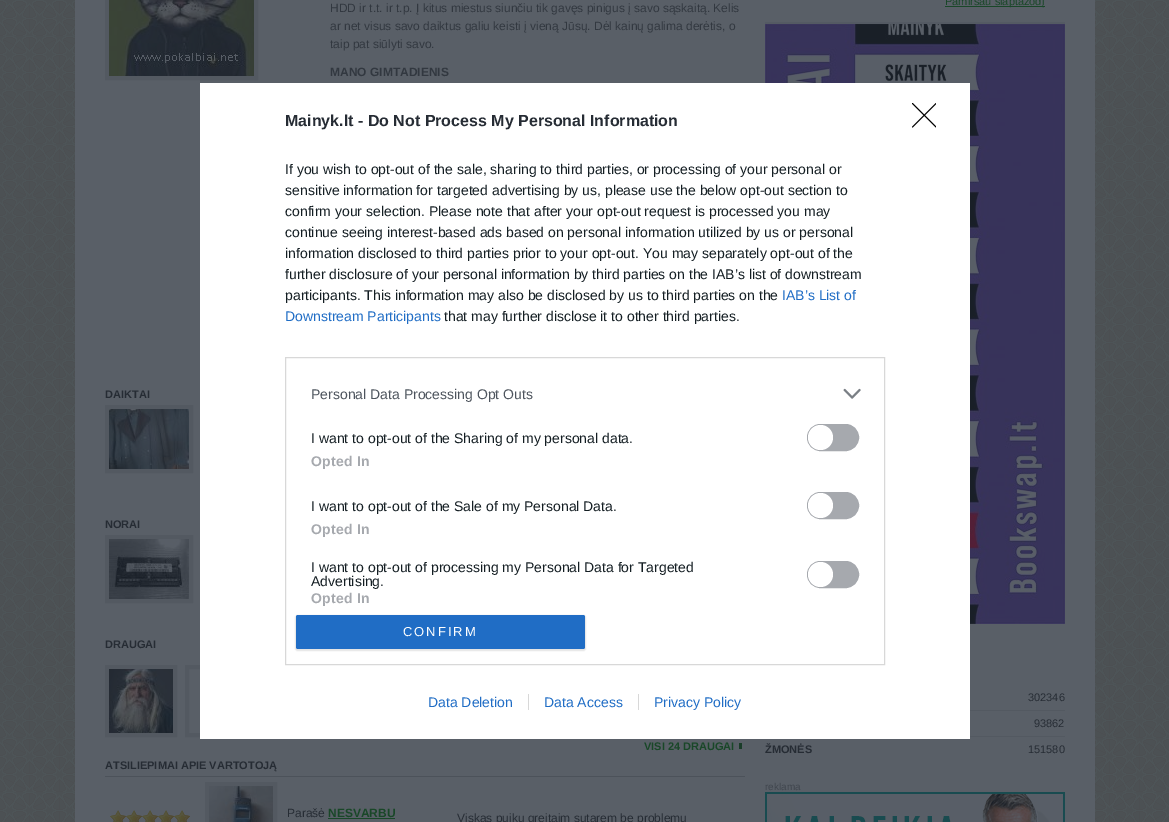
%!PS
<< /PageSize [1169 822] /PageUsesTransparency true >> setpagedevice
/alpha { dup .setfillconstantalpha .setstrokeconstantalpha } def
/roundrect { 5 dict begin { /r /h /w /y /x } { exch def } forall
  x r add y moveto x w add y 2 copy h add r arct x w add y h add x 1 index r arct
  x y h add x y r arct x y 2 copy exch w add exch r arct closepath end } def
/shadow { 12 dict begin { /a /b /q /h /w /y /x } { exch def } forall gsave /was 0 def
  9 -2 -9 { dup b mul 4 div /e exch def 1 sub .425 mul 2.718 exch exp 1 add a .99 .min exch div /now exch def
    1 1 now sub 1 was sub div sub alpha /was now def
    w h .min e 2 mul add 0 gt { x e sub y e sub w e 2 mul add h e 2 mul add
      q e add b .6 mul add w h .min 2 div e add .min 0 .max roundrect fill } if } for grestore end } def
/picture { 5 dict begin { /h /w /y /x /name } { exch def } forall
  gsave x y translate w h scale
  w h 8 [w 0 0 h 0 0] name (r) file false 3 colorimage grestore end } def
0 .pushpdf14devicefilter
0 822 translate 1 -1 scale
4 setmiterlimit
1 setgray
0 0 1169 822 rectfill
(img1.rgb) 0 0 1169 822 picture
0.349 0.373 0.404 setrgbcolor
75 0 1020 822 rectfill
0.325 0.349 0.38 setrgbcolor
4 setlinewidth
107 -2 149 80 rectstroke
(img2.rgb) 109 0 145 76 picture
/LiberationSans-Regular [12 0 0 -12 0 0] selectfont
0.196 0.22 0.251 setrgbcolor
330 12 moveto (HDD ir t.t. ir t.p. Į kitus miestus siunčiu tik gavęs pinigus į savo sąskaitą. Kelis) show
330 30 moveto (ar net visus savo daiktus galiu keisti į vieną Jūsų. Dėl kainų galima derėtis, o) show
330 48 moveto (taip pat siūlyti savo.) show
/LiberationSans-Bold [12 0 0 -12 0 0] selectfont
330 76 moveto (MANO GIMTADIENIS) show
/LiberationSans-Bold [11 0 0 -11 0 0] selectfont
0.149 0.173 0.204 setrgbcolor
105 398 moveto (DAIKTAI) show
0.325 0.349 0.38 setrgbcolor
107 407 84 64 rectstroke
(img3.rgb) 109 409 80 60 picture
0.149 0.173 0.204 setrgbcolor
105 528 moveto (NORAI) show
0.325 0.349 0.38 setrgbcolor
107 537 84 64 rectstroke
(img4.rgb) 109 539 80 60 picture
0.149 0.173 0.204 setrgbcolor
105 648 moveto (DRAUGAI) show
0.325 0.349 0.38 setrgbcolor
107 667 68 68 rectstroke
(img5.rgb) 109 669 64 64 picture
187 667 68 68 rectstroke
0.098 0.235 0.157 setrgbcolor
739 743 3 6 rectfill
0.098 0.278 0.157 setrgbcolor
644 750 moveto (VISI 24 DRAUGAI) show
0.149 0.173 0.204 setrgbcolor
105 769 moveto (ATSILIEPIMAI APIE VARTOTOJĄ) show
0.298 0.322 0.353 setrgbcolor
105 776 640 1 rectfill
(img6.rgb) 110 810 16 12 picture
(img6.rgb) 126 810 16 12 picture
(img6.rgb) 142 810 16 12 picture
(img6.rgb) 158 810 16 12 picture
(img6.rgb) 174 810 16 12 picture
0.325 0.349 0.38 setrgbcolor
207 784 68 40 rectstroke
(img7.rgb) 209 786 64 36 picture
/LiberationSans-Regular [12 0 0 -12 0 0] selectfont
0.149 0.173 0.204 setrgbcolor
287 817 moveto (Parašė) show
/LiberationSans-Bold [12 0 0 -12 0 0] selectfont
0.098 0.278 0.157 setrgbcolor
328 817 moveto (NESVARBU) show
328 818 67 1 rectfill
/LiberationSans-Regular [12 0 0 -12 0 0] selectfont
0.149 0.173 0.204 setrgbcolor
457 822 moveto (Viskas puiku greitaim sutarem be problemu) show
0.329 0.353 0.388 setrgbcolor
765 22 300 2 rectfill
0.098 0.278 0.157 setrgbcolor
945 6 100 1 rectfill
/LiberationSans-Regular [11 0 0 -11 0 0] selectfont
945 5 moveto (Pamiršau slaptažodį) show
(img8.rgb) 765 24 300 600 picture
0.325 0.349 0.38 setrgbcolor
970 710 95 1 rectfill
0.149 0.173 0.204 setrgbcolor
1028 701 moveto (302346) show
0.325 0.349 0.38 setrgbcolor
970 736 95 1 rectfill
0.149 0.173 0.204 setrgbcolor
1034 727 moveto (93862) show
/LiberationSans-Bold [11 0 0 -11 0 0] selectfont
765 753 moveto (ŽMONĖS) show
/LiberationSans-Regular [11 0 0 -11 0 0] selectfont
1028 753 moveto (151580) show
/LiberationSans-Regular [10 0 0 -10 0 0] selectfont
0.247 0.271 0.302 setrgbcolor
765 790 moveto (reklama) show
(img9.rgb) 765 792 300 30 picture
1 setgray
200 83 770 656 rectfill
/LiberationSans-Bold [16 0 0 -16 0 0] selectfont
0.149 0.173 0.204 setrgbcolor
285 126 moveto (Mainyk.lt - Do Not Process My Personal Information) show
/LiberationSans-Regular [14 0 0 -14 0 0] selectfont
0.078 0.118 0.137 setrgbcolor
285 174 moveto (If you wish to opt-out of the sale, sharing to third parties, or processing of your personal or) show
285 195 moveto (sensitive information for targeted advertising by us, please use the below opt-out section to) show
285 216 moveto (confirm your selection. Please note that after your opt-out request is processed you may) show
285 237 moveto (continue seeing interest-based ads based on personal information utilized by us or personal) show
285 258 moveto (information disclosed to third parties prior to your opt-out. You may separately opt-out of the) show
285 279 moveto (further disclosure of your personal information by third parties on the IAB’s list of downstream) show
285 300 moveto (participants. This information may also be disclosed by us to third parties on the) show
0.125 0.427 0.773 setrgbcolor
782 300 moveto (IAB’s List of) show
285 321 moveto (Downstream Participants) show
0.078 0.118 0.137 setrgbcolor
444 321 moveto (that may further disclose it to other third parties.) show
0.847 setgray
1 setlinewidth
285.5 357.5 599 307 rectstroke
0.302 0.329 0.365 setrgbcolor
311 399 moveto (Personal Data Processing Opt Outs) show
(img10.rgb) 843 388 18 11 picture
0.078 0.118 0.137 setrgbcolor
311 443 moveto (I want to opt-out of the Sharing of my personal data.) show
0.651 0.663 0.682 setrgbcolor
807.5 424.5 51 26 13 roundrect gsave fill grestore
stroke
1 setgray
newpath 820.5 437.5 12.5 0 360 arc closepath fill
/LiberationSans-Bold [14 0 0 -14 0 0] selectfont
0.651 0.663 0.682 setrgbcolor
311 466 moveto 0.25 0 (Opted In) ashow
/LiberationSans-Regular [14 0 0 -14 0 0] selectfont
0.078 0.118 0.137 setrgbcolor
311 511 moveto (I want to opt-out of the Sale of my Personal Data.) show
0.651 0.663 0.682 setrgbcolor
807.5 492.5 51 26 13 roundrect gsave fill grestore
stroke
1 setgray
newpath 820.5 505.5 12.5 0 360 arc closepath fill
/LiberationSans-Bold [14 0 0 -14 0 0] selectfont
0.651 0.663 0.682 setrgbcolor
311 534 moveto 0.25 0 (Opted In) ashow
/LiberationSans-Regular [14 0 0 -14 0 0] selectfont
0.078 0.118 0.137 setrgbcolor
311 572 moveto (I want to opt-out of processing my Personal Data for Targeted) show
311 586 moveto (Advertising.) show
0.651 0.663 0.682 setrgbcolor
807.5 561.5 51 26 13 roundrect gsave fill grestore
stroke
1 setgray
newpath 820.5 574.5 12.5 0 360 arc closepath fill
/LiberationSans-Bold [14 0 0 -14 0 0] selectfont
0.651 0.663 0.682 setrgbcolor
311 603 moveto 0.25 0 (Opted In) ashow
0 setgray
295 615 291 36 3 0.5 0.1 shadow
0.125 0.427 0.773 setrgbcolor
296 615 289 34 2 roundrect fill
/LiberationSans-Regular [13 0 0 -13 0 0] selectfont
1 setgray
403 636 moveto 2 0 (CONFIRM) ashow
gsave
912 103 24 25 rectclip
0 setgray
1 setlinecap
1 setlinejoin
newpath 912.5 103.5 moveto 936 127 lineto 936 103.5 moveto 912.5 127 lineto stroke
grestore
/LiberationSans-Regular [14 0 0 -14 0 0] selectfont
0.125 0.427 0.773 setrgbcolor
428 707 moveto (Data Deletion) show
544 707 moveto (Data Access) show
0.847 setgray
528 694 1 16 rectfill
0.125 0.427 0.773 setrgbcolor
654 707 moveto (Privacy Policy) show
0.847 setgray
638 694 1 16 rectfill
.poppdf14devicefilter showpage
